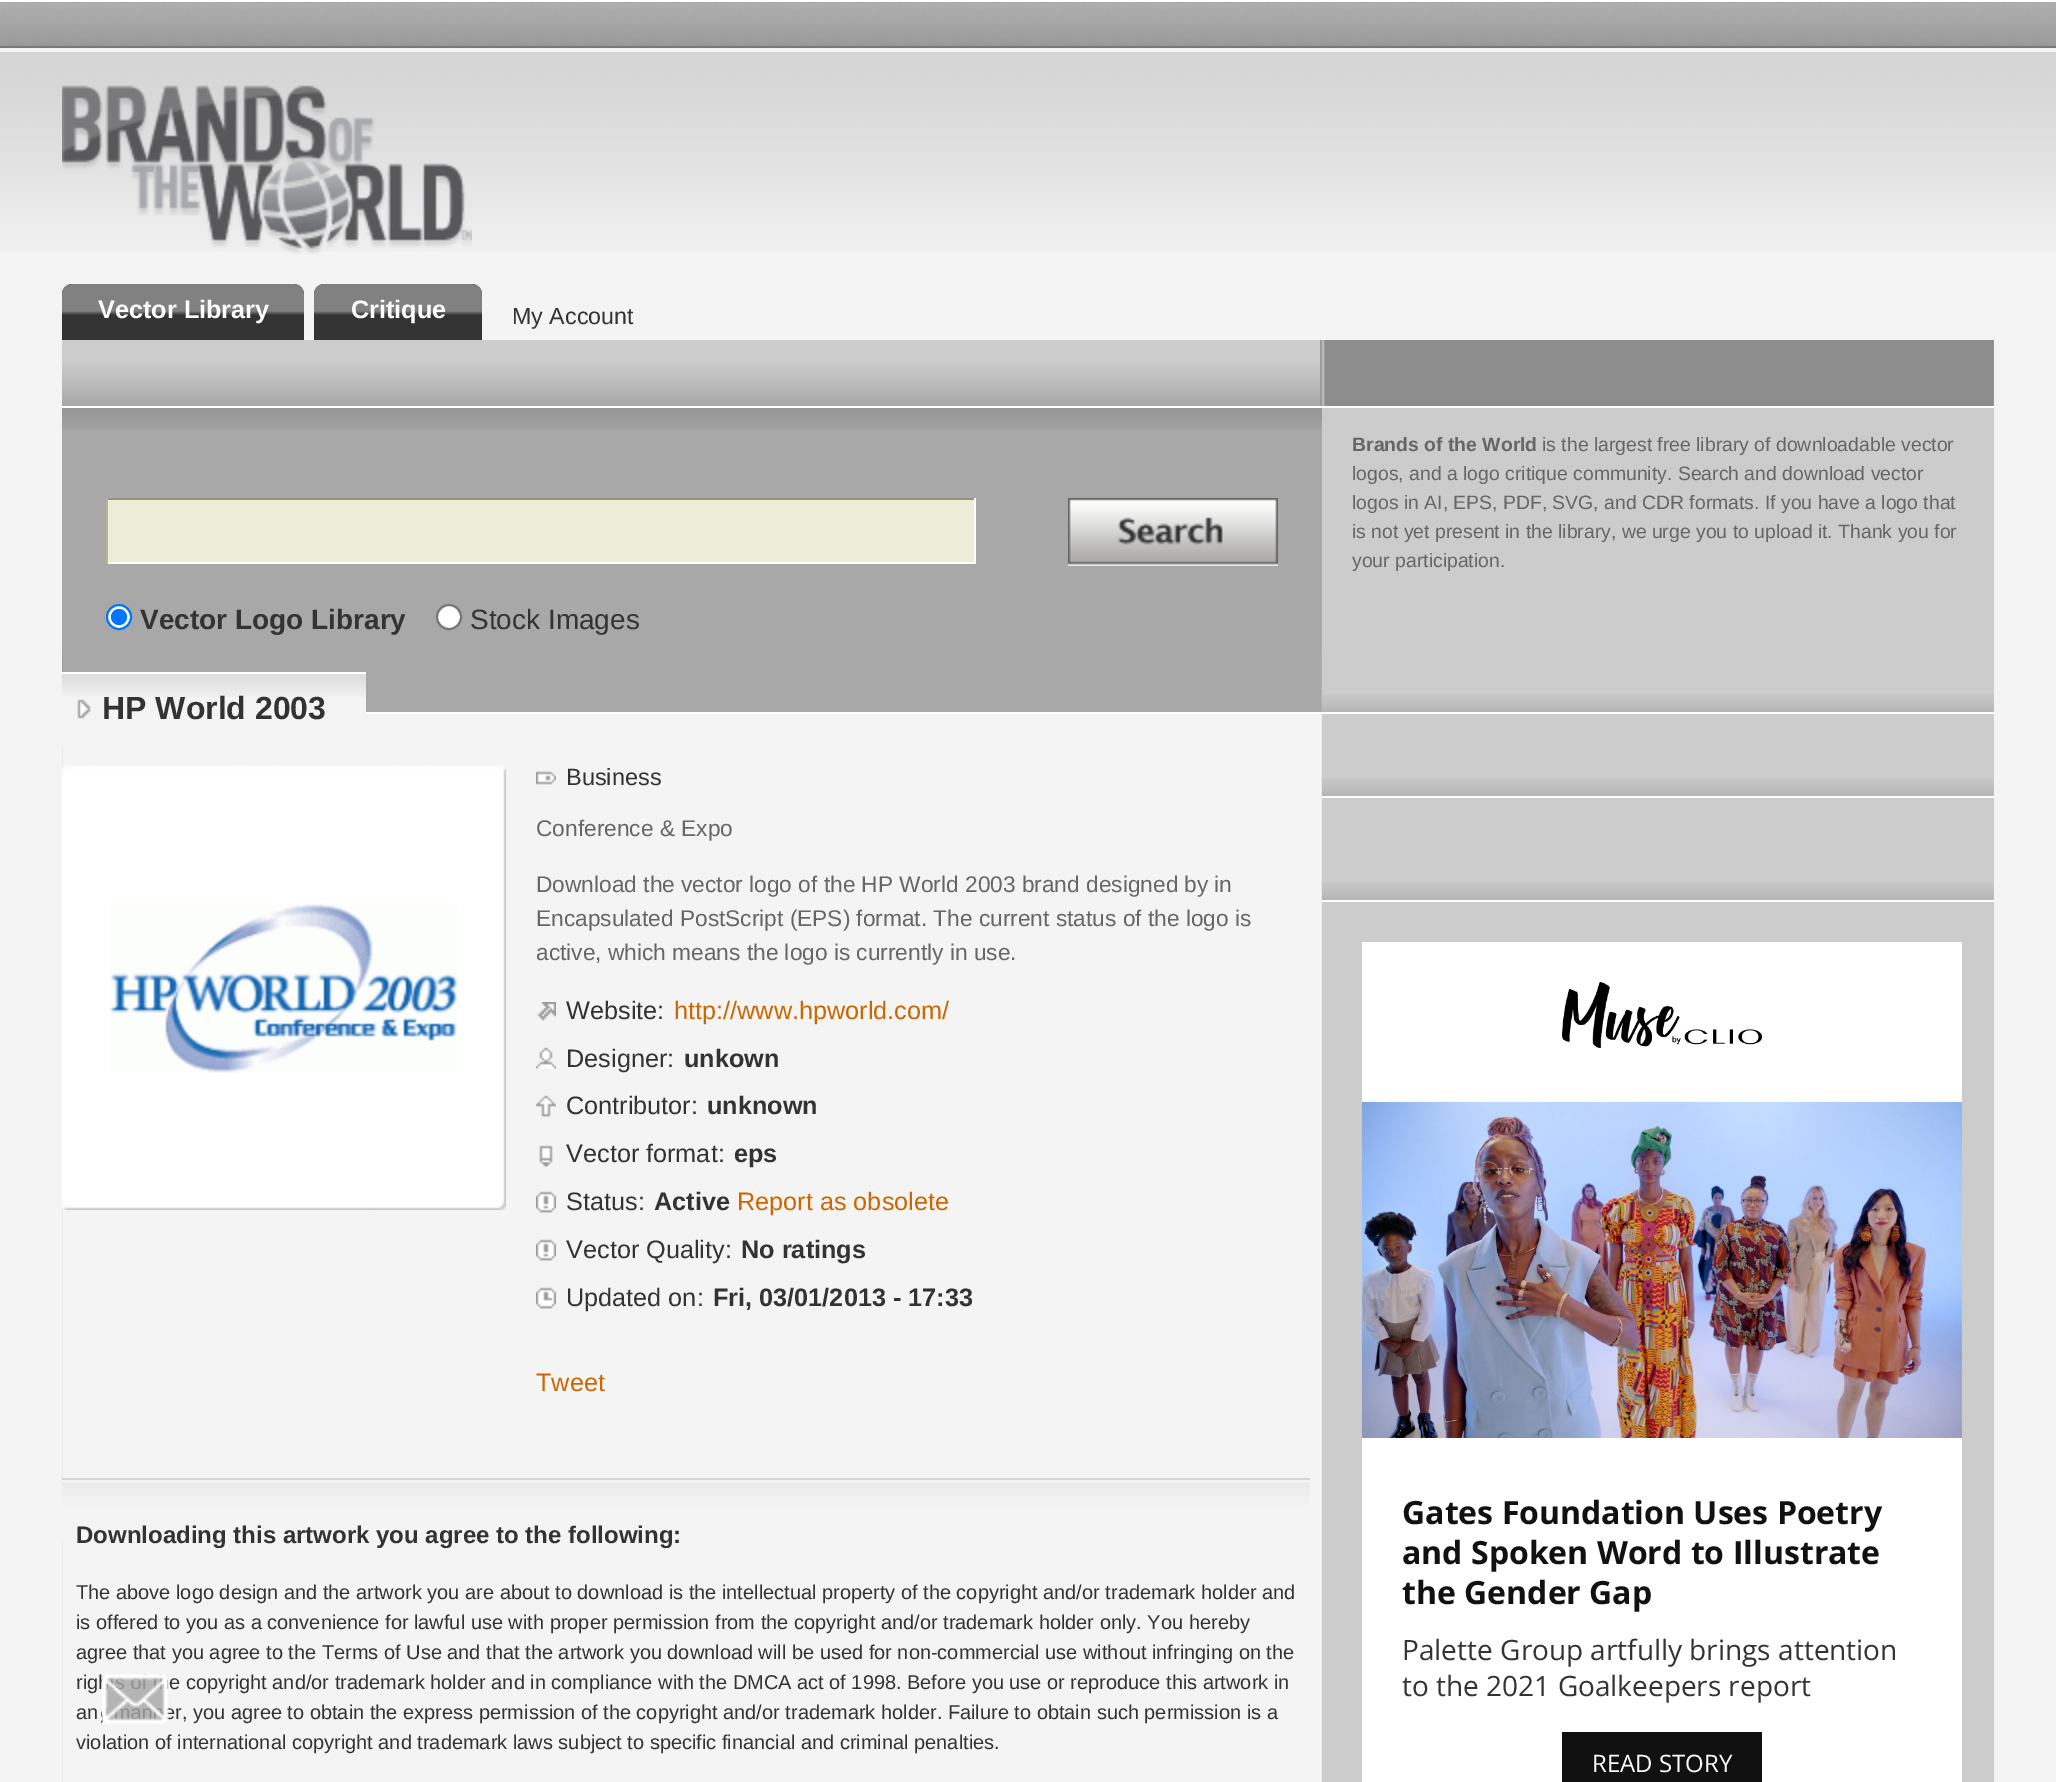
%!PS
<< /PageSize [2056 1782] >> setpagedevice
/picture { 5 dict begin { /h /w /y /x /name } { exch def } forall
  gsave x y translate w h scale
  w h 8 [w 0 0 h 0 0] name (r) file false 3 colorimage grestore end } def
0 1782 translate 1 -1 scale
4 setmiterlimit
0.957 setgray
0 0 2056 1782 rectfill
(img1.rgb) 0 52 2056 200 picture
0.592 setgray
0 2 2056 44 rectfill
(img2.rgb) 0 2 2056 43 picture
1 setgray
0 0 2056 2 rectfill
0.478 setgray
0 46 2056 2 rectfill
(img3.rgb) 62 85 410 169 picture
0.2 setgray
newpath 72 284 moveto 294 284 lineto 299.5 284 304 288.5 304 294 curveto 304 340 lineto 62 340 lineto 62 294 lineto 62 288.5 66.5 284 72 284 curveto closepath fill
(img4.rgb) 62 284 242 31 picture
/LiberationSans-Bold [25.25 0 0 -25.25 0 0] selectfont
0.996 setgray
98 318 moveto (Vector Library) show
0.2 setgray
newpath 324 284 moveto 472 284 lineto 477.5 284 482 288.5 482 294 curveto 482 340 lineto 314 340 lineto 314 294 lineto 314 288.5 318.5 284 324 284 curveto closepath fill
(img5.rgb) 314 284 168 31 picture
0.996 setgray
351 318 moveto (Critique) show
/LiberationSans-Regular [23.25 0 0 -23.25 0 0] selectfont
0.2 setgray
512 324 moveto (My Account) show
(img6.rgb) 1322 340 672 66 picture
0.8 setgray
62 340 1258 24 rectfill
(img7.rgb) 62 364 1258 42 picture
0.604 setgray
1320 340 2 66 rectfill
(img8.rgb) 62 650 1260 62 picture
1 setgray
62 406 1932 2 rectfill
0.8 setgray
1322 408 672 286 rectfill
(img9.rgb) 1322 694 672 18 picture
/LiberationSans-Bold [19.4 0 0 -19.4 0 0] selectfont
0.4 setgray
1352 451 moveto (Brands of the World) show
/LiberationSans-Regular [19.4 0 0 -19.4 0 0] selectfont
1542 451 moveto (is the largest free library of downloadable vector) show
1352 480 moveto (logos, and a logo critique community. Search and download vector) show
1352 509 moveto (logos in AI, EPS, PDF, SVG, and CDR formats. If you have a logo that) show
1352 538 moveto (is not yet present in the library, we urge you to upload it. Thank you for) show
1352 567 moveto (your participation.) show
0.659 setgray
62 430 1260 220 rectfill
(img10.rgb) 62 408 1260 22 picture
0.929 0.929 0.843 setrgbcolor
108 500 866 62 rectfill
0.58 0.58 0.494 setrgbcolor
106 498 870 2 rectfill
1 setgray
974 498 2 66 rectfill
106 562 870 2 rectfill
0.71 0.71 0.624 setrgbcolor
106 498 2 66 rectfill
(img11.rgb) 1068 498 210 68 picture
1 setgray
newpath 119 617 12 0 360 arc closepath gsave fill grestore
0 0.459 1 setrgbcolor
2 setlinewidth
stroke
newpath 119 617 8 0 360 arc closepath fill
/LiberationSans-Bold [28 0 0 -28 0 0] selectfont
0.2 setgray
140 629 moveto (Vector Logo Library) show
1 setgray
newpath 449 617 12 0 360 arc closepath gsave fill grestore
0.463 setgray
stroke
/LiberationSans-Regular [28 0 0 -28 0 0] selectfont
0.2 setgray
470 629 moveto (Stock Images) show
(img12.rgb) 62 714 1260 1068 picture
1 setgray
366 712 1628 2 rectfill
0.957 setgray
62 697 304 49 rectfill
(img13.rgb) 62 674 304 23 picture
(img14.rgb) 77 699 14 20 picture
1 setgray
62 672 304 2 rectfill
/LiberationSans-Bold [32 0 0 -32 0 0] selectfont
0.2 setgray
102 719 moveto (HP World 2003) show
(img15.rgb) 62 766 444 444 picture
(img16.rgb) 109 903 350 170 picture
(img17.rgb) 536 771 20 14 picture
/LiberationSans-Regular [23.5 0 0 -23.5 0 0] selectfont
566 785 moveto (Business) show
/LiberationSans-Regular [22.7 0 0 -22.7 0 0] selectfont
0.4 setgray
536 836 moveto (Conference & Expo) show
536 892 moveto (Download the vector logo of the HP World 2003 brand designed by) show
1214 892 moveto (in) show
536 926 moveto (Encapsulated PostScript \(EPS\) format. The current status of the logo is) show
536 960 moveto (active, which means the logo is currently in use.) show
(img18.rgb) 537 1002 19 19 picture
/LiberationSans-Regular [25.25 0 0 -25.25 0 0] selectfont
0.2 setgray
566 1019 moveto (Website:) show
0.8 0.4 0 setrgbcolor
674 1019 moveto (http://www.hpworld.com/) show
(img19.rgb) 536 1047 20 22 picture
0.2 setgray
566 1067 moveto (Designer:) show
/LiberationSans-Bold [25.25 0 0 -25.25 0 0] selectfont
684 1067 moveto (unkown) show
(img20.rgb) 536 1095 20 22 picture
/LiberationSans-Regular [25.25 0 0 -25.25 0 0] selectfont
566 1114 moveto (Contributor:) show
/LiberationSans-Bold [25.25 0 0 -25.25 0 0] selectfont
707 1114 moveto (unknown) show
(img21.rgb) 539 1145 14 22 picture
/LiberationSans-Regular [25.25 0 0 -25.25 0 0] selectfont
566 1162 moveto (Vector format:) show
/LiberationSans-Bold [25.25 0 0 -25.25 0 0] selectfont
734 1162 moveto (eps) show
(img22.rgb) 536 1191 20 22 picture
/LiberationSans-Regular [25.25 0 0 -25.25 0 0] selectfont
566 1210 moveto (Status:) show
/LiberationSans-Bold [25.25 0 0 -25.25 0 0] selectfont
654 1210 moveto (Active) show
/LiberationSans-Regular [25.25 0 0 -25.25 0 0] selectfont
0.8 0.4 0 setrgbcolor
737 1210 moveto (Report as obsolete) show
(img22.rgb) 536 1239 20 22 picture
0.2 setgray
566 1258 moveto (Vector Quality:) show
/LiberationSans-Bold [25.25 0 0 -25.25 0 0] selectfont
741 1258 moveto (No ratings) show
(img23.rgb) 536 1287 20 22 picture
/LiberationSans-Regular [25.25 0 0 -25.25 0 0] selectfont
566 1306 moveto (Updated on:) show
/LiberationSans-Bold [25.25 0 0 -25.25 0 0] selectfont
713 1306 moveto (Fri, 03/01/2013 - 17:33) show
/LiberationSans-Regular [25.25 0 0 -25.25 0 0] selectfont
0.8 0.4 0 setrgbcolor
536 1391 moveto (Tweet) show
(img24.rgb) 62 1478 1248 64 picture
/LiberationSans-Bold [24 0 0 -24 0 0] selectfont
0.2 setgray
76 1543 moveto (Downloading this artwork you agree to the following:) show
/LiberationSans-Regular [20 0 0 -20 0 0] selectfont
76 1599 moveto (The above logo design and the artwork you are about to download is the intellectual property of the copyright and/or trademark holder and) show
76 1629 moveto (is offered to you as a convenience for lawful use with proper permission from the copyright and/or trademark holder only. You hereby) show
76 1659 moveto (agree that you agree to the Terms of Use and that the artwork you download will be used for non-commercial use without infringing on the) show
76 1689 moveto (righ) show
169 1689 moveto (e copyright and/or trademark holder and in compliance with the DMCA act of 1998. Before you use or reproduce this artwork in) show
76 1719 moveto (an) show
164 1719 moveto (er, you agree to obtain the express permission of the copyright and/or trademark holder. Failure to obtain such permission is a) show
76 1749 moveto (violation of international copyright and trademark laws subject to specific financial and criminal penalties.) show
0.8 setgray
1322 714 672 1068 rectfill
(img9.rgb) 1322 778 672 18 picture
(img9.rgb) 1322 882 672 18 picture
1 setgray
1322 796 672 2 rectfill
1322 900 672 2 rectfill
1362 942 600 840 rectfill
(img25.rgb) 1562 982 200 66 picture
(img26.rgb) 1362 1102 600 336 picture
/OpenSans-Bold [32 0 0 -32 0 0] selectfont
0.067 setgray
1402 1524 moveto (Gates Foundation Uses Poetry) show
1402 1564 moveto (and Spoken Word to Illustrate) show
1402 1604 moveto (the Gender Gap) show
/OpenSans-Regular [28 0 0 -28 0 0] selectfont
0.2 setgray
1402 1660 moveto (Palette Group artfully brings attention) show
1402 1696 moveto (to the 2021 Goalkeepers report) show
0.067 setgray
1562 1732 200 50 rectfill
/OpenSans-Regular [24 0 0 -24 0 0] selectfont
0.996 setgray
1592 1772 moveto (READ STORY) show
(img27.rgb) 101 1674 68 50 picture
showpage
